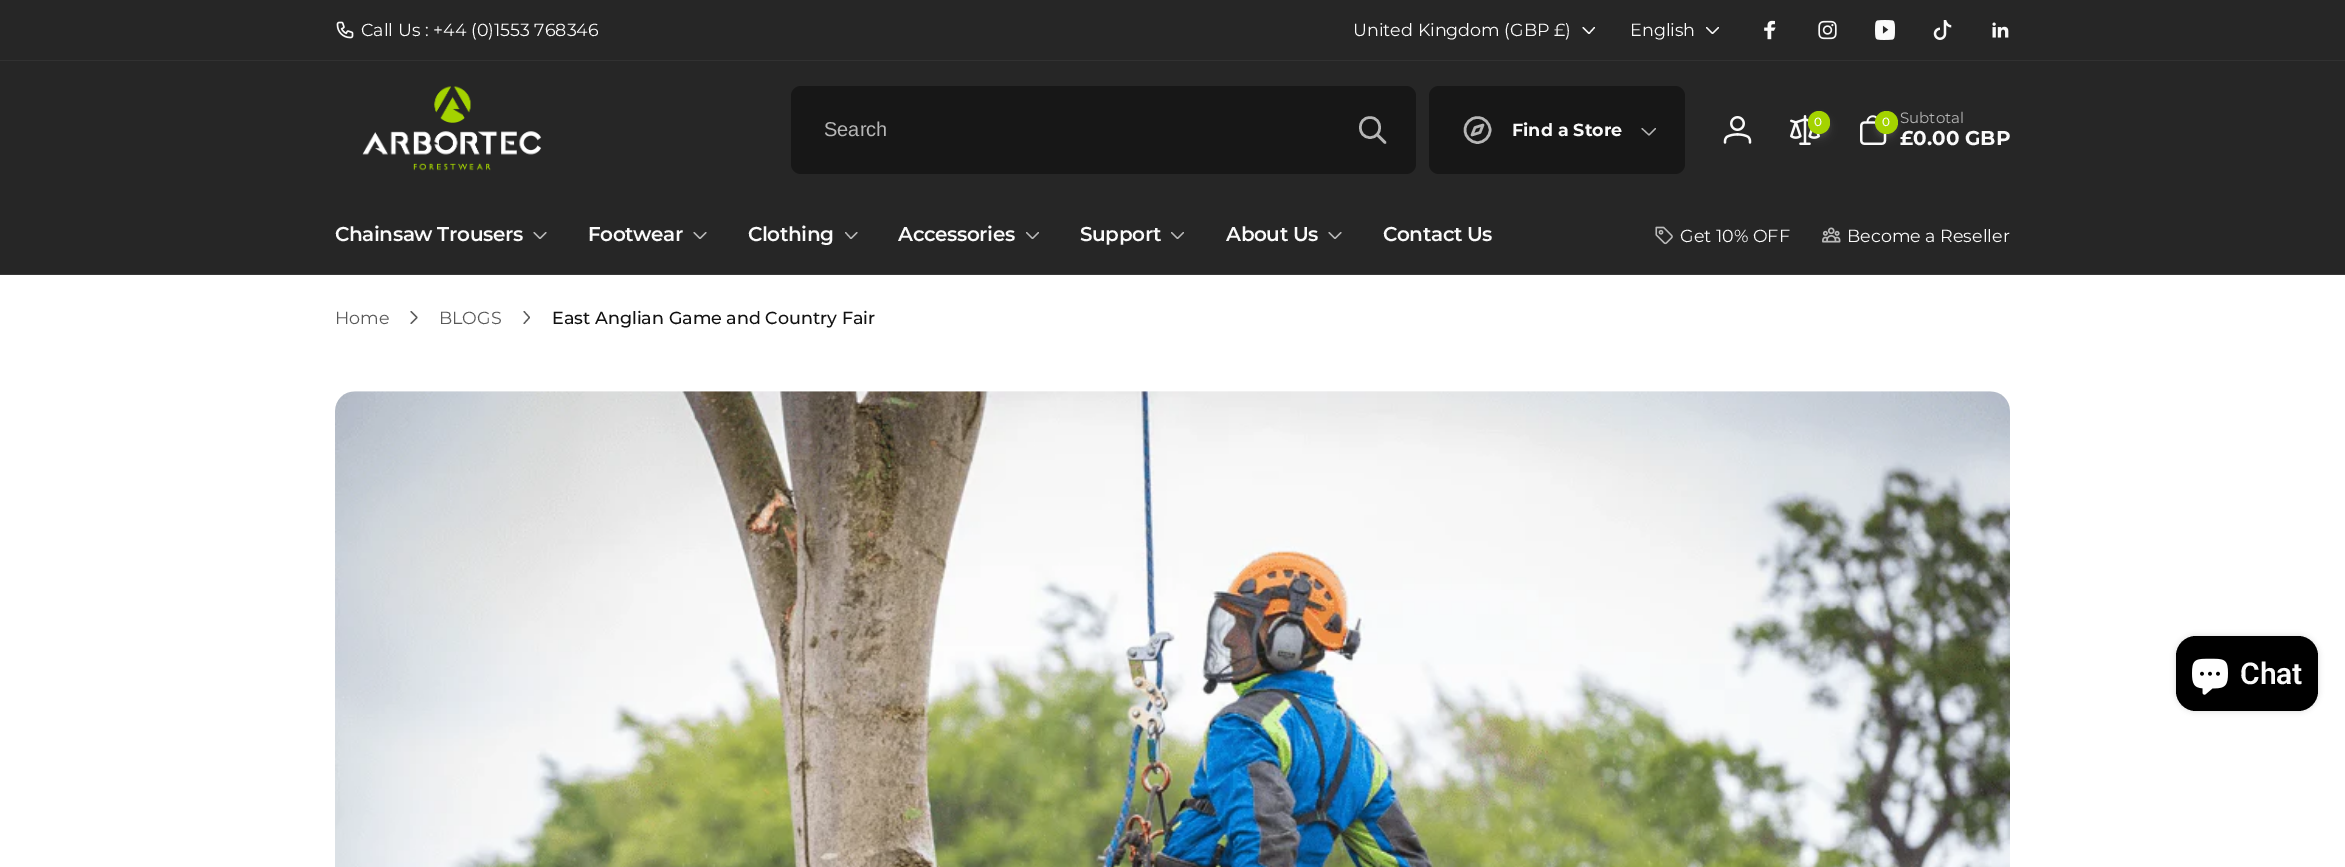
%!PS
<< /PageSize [2345 867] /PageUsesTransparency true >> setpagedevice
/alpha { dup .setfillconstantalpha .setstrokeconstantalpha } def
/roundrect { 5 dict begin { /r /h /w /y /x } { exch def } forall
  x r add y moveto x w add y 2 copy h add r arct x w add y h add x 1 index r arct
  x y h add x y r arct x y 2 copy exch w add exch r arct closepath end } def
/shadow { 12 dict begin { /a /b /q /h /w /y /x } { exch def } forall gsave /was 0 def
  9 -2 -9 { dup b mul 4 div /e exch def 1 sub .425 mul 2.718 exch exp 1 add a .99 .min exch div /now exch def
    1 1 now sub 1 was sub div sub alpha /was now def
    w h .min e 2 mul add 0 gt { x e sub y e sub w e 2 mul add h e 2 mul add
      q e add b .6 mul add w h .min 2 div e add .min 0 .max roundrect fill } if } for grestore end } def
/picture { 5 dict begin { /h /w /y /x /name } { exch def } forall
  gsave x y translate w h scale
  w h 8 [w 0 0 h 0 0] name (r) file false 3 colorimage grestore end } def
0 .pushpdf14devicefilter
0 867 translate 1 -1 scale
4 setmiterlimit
1 setgray
0 0 2345 867 rectfill
0.149 setgray
0 0 2345 274 rectfill
0.192 setgray
0 60 2345 1 rectfill
(img1.rgb) 336 21 18 18 picture
/Montserrat-Regular [17.5 0 0 -17.5 0 0] selectfont
0.98 setgray
361 36 moveto (Call Us : +44 \(0\)1553 768346) show
1353 36 moveto (United Kingdom \(GBP £\)) show
1.2 setlinewidth
1 setlinecap
1 setlinejoin
newpath 1594.5 27.5 moveto 1589 33.5 lineto 1583 27.5 lineto stroke
1630 36 moveto (English) show
newpath 1718.5 27.5 moveto 1712.5 33.5 lineto 1706.5 27.5 lineto stroke
(img2.rgb) 1764 20 12 20 picture
(img3.rgb) 1818 20 19 20 picture
(img4.rgb) 1875 20 20 20 picture
(img5.rgb) 1933 20 19 20 picture
(img6.rgb) 1992 22 17 16 picture
0.216 setgray
0 274 2345 1 rectfill
(img7.rgb) 362 86 180 85 picture
0.09 setgray
791 86 625 88 10 roundrect fill
/LiberationSans-Regular [20 0 0 -20 0 0] selectfont
0.714 setgray
824 136 moveto (Search) show
2.5 setlinewidth
newpath 1385 142.5 moveto 1377 134.5 lineto 1370 137.5 moveto 1383 137.5 1383 117.5 1370 117.5 curveto 1357 117.5 1357 137.5 1370 137.5 curveto closepath stroke
0.09 setgray
1429 86 256 88 10 roundrect fill
0.714 setgray
0 setlinecap
0 setlinejoin
newpath 1477.5 130 12.5 0 360 arc closepath stroke
1 setlinecap
1 setlinejoin
newpath 1483 125 moveto 1480 132.5 lineto 1472 135 lineto 1475 127.5 lineto closepath stroke
/Montserrat-Bold [17.5 0 0 -17.5 0 0] selectfont
0.98 setgray
1512 136 moveto (Find a Store) show
0.714 setgray
1.2 setlinewidth
newpath 1655.5 128.5 moveto 1649 135 lineto 1642 128.5 lineto stroke
(img8.rgb) 1723 116 29 28 picture
(img9.rgb) 1790 115 30 30 picture
0.98 setgray
1809 115 20 20 10 2.5 0.06 shadow
1809 118 20 20 10 4 0.1 shadow
0.643 0.827 0 setrgbcolor
1808 111 22 23 11 roundrect fill
/Montserrat-Medium [12 0 0 -12 0 0] selectfont
0.98 setgray
1814 126 moveto 1 0 (0) ashow
(img10.rgb) 1860 115 27 30 picture
1876 115 20 20 10 2.5 0.06 shadow
1876 118 20 20 10 4 0.1 shadow
0.643 0.827 0 setrgbcolor
newpath 1886.5 122.5 11.5 0 360 arc closepath fill
0.98 setgray
1882 126 moveto (0) show
/Montserrat-Regular [15 0 0 -15 0 0] selectfont
0.714 setgray
1900 123 moveto (Subtotal) show
/Montserrat-Bold [20 0 0 -20 0 0] selectfont
0.98 setgray
1900 145 moveto (£0.00 GBP) show
/Montserrat-SemiBold [20 0 0 -20 0 0] selectfont
335 241 moveto -0.4 0 (Chainsaw Trousers) ashow
0.729 setgray
newpath 546 232.5 moveto 540 238.5 lineto 534 232.5 lineto stroke
0.98 setgray
588 241 moveto -0.4 0 (Footwear) ashow
0.729 setgray
newpath 706 232.5 moveto 700 238.5 lineto 694 232.5 lineto stroke
0.98 setgray
748 241 moveto -0.4 0 (Clothing) ashow
0.729 setgray
newpath 857 232.5 moveto 851 238.5 lineto 845.5 232.5 lineto stroke
0.98 setgray
898 241 moveto -0.4 0 (Accessories) ashow
0.729 setgray
newpath 1038.5 232.5 moveto 1032.5 238.5 lineto 1026.5 232.5 lineto stroke
0.98 setgray
1080 241 moveto -0.4 0 (Support) ashow
0.729 setgray
newpath 1183.5 232.5 moveto 1177.5 238.5 lineto 1171.5 232.5 lineto stroke
0.98 setgray
1226 241 moveto -0.4 0 (About Us) ashow
0.729 setgray
newpath 1341 232.5 moveto 1335 238.5 lineto 1329 232.5 lineto stroke
0.98 setgray
1383 241 moveto -0.4 0 (Contact Us) ashow
(img11.rgb) 1655 226 18 19 picture
/Montserrat-Regular [17.5 0 0 -17.5 0 0] selectfont
1680 242 moveto (Get 10% OFF) show
(img12.rgb) 1822 227 19 16 picture
1847 242 moveto (Become a Reseller) show
0.349 setgray
335 324 moveto (Home) show
newpath 411 311.5 moveto 417 317.5 lineto 411 323.5 lineto stroke
439 324 moveto (BLOGS) show
newpath 524 311.5 moveto 529.5 317.5 lineto 524 323.5 lineto stroke
/Montserrat-Medium [17.5 0 0 -17.5 0 0] selectfont
0.071 setgray
552 324 moveto (East Anglian Game and Country Fair) show
0.98 setgray
335 391 1675 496 20 roundrect fill
(img13.rgb) 335 391 1675 476 picture
0 setgray
2176 636 142 75 20 3 0.15 shadow
2176 636 142 75 20 roundrect fill
(img14.rgb) 2192 658 36 37 picture
/Roboto-SemiBold [30 0 0 -30 0 0] selectfont
0.98 setgray
2240 684 moveto (Chat) show
.poppdf14devicefilter showpage
